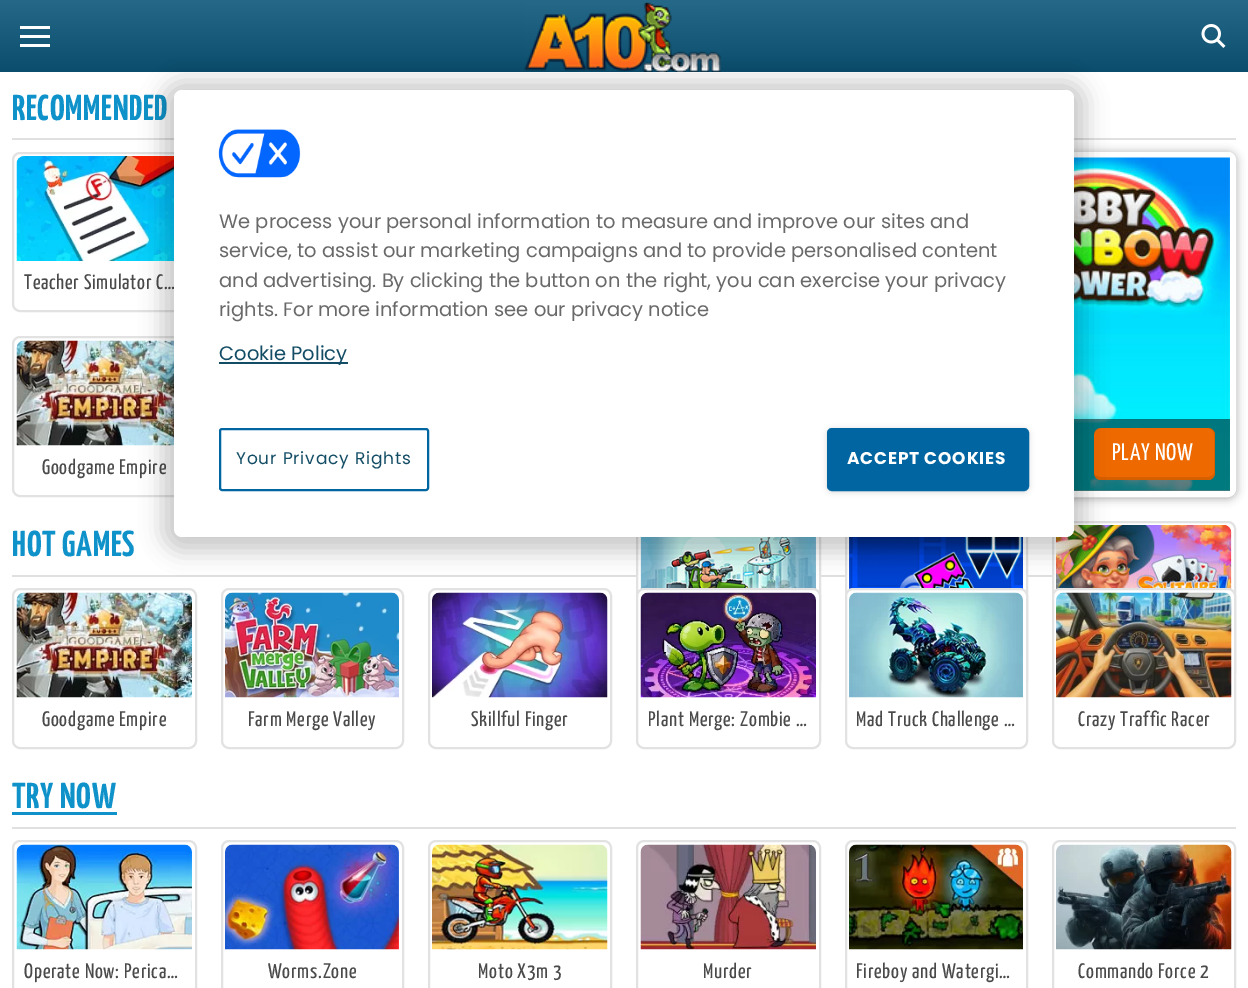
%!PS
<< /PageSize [1248 988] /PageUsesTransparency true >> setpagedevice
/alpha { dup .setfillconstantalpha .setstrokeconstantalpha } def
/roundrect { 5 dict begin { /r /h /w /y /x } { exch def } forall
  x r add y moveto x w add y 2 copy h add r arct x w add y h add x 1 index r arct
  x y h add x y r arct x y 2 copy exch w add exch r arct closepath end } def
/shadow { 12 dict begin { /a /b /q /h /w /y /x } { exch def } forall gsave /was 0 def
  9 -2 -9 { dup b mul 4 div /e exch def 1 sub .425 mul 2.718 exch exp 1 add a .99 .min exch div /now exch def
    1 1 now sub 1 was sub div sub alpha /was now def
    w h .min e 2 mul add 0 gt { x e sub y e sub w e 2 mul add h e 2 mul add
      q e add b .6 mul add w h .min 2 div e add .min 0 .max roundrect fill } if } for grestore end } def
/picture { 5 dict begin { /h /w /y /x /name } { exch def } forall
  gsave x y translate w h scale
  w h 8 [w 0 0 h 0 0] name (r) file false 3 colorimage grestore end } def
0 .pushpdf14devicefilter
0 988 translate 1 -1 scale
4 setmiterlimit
1 setgray
0 0 1248 988 rectfill
gsave newpath 0 0 moveto 1248 0 lineto 1248 72 lineto 0 72 lineto closepath clip newpath
<< /ShadingType 2 /ColorSpace /DeviceRGB /Coords [624 0 624 72] /Extend [true true] /Function << /FunctionType 2 /Domain [0 1] /C0 [0.149 0.408 0.529] /C1 [0.039 0.302 0.424] /N 1 >> >> shfill grestore
20 26 30 3 rectfill
20 35 30 3 rectfill
20 44 30 3 rectfill
(img1.rgb) 524 2 197 70 picture
(img2.rgb) 1201 24 25 24 picture
0.878 setgray
12 138 162 2 rectfill
/YanoneKaffeesatz-Bold [36 0 0 -36 0 0] selectfont
0.059 0.573 0.788 setrgbcolor
12 120 moveto 0.75 0 (RECOMMENDED) ashow
0.886 setgray
2 setlinewidth
13 153 183 158 7 roundrect stroke
(img3.rgb) 16 156 158 105 picture
/YanoneKaffeesatz-Regular [21 0 0 -21 0 0] selectfont
0.29 setgray
24 289 moveto 0.75 0 (Teacher Simulator C…) ashow
0.886 setgray
13 337 183 159 7 roundrect stroke
(img4.rgb) 16 340 158 106 picture
0.29 setgray
42 474 moveto 0.75 0 (Goodgame Empire) ashow
0.878 setgray
1074 138 162 2 rectfill
gsave
newpath 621 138 moveto 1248 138 lineto 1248 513 lineto 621 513 lineto closepath 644 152 moveto 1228 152 lineto 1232.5 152 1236 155.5 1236 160 curveto 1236 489 lineto 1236 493.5 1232.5 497 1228 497 curveto 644 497 lineto 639.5 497 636 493.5 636 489 curveto 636 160 lineto 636 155.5 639.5 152 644 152 curveto closepath eoclip newpath
0.196 setgray
636 153 600 345 8 4.5 0.45 shadow
grestore
1 setgray
3 setlinewidth
637.5 153.5 597 342 6.5 roundrect stroke
(img5.rgb) 1074 157 156 334 picture
0.5 alpha
0 setgray
1074 419 156 72 rectfill
1 alpha
0.933 0.412 0 setrgbcolor
1094 428 121 52 8 roundrect fill
0.839 0.373 0 setrgbcolor
newpath 1101 428 moveto 1208 428 lineto 1212 428 1215 431 1215 435 curveto 1215 472 lineto 1215 477 1212 480 1208 480 curveto 1101 480 lineto 1097 480 1094 477 1094 472 curveto 1094 435 lineto 1094 431 1097 428 1101 428 curveto closepath 1101 428 moveto 1208 428 lineto 1211 428 1214 431 1214 435 curveto 1214 472 lineto 1214 475 1211 477 1208 477 curveto 1101 477 lineto 1097 477 1094 475 1094 472 curveto 1094 435 lineto 1094 431 1097 428 1101 428 curveto closepath eofill
/YanoneKaffeesatz-Regular [24 0 0 -24 0 0] selectfont
1 setgray
1112 460 moveto 0.75 0 (PLAY NOW) ashow
0.878 setgray
12 575 1040 2 rectfill
1 setgray
638 575 181 2 rectfill
0.886 setgray
2 setlinewidth
637 522 183 158 rectstroke
(img6.rgb) 640 537 176 53 picture
1 setgray
847 575 179 2 rectfill
0.886 setgray
846 522 181 158 rectstroke
(img7.rgb) 849 537 174 53 picture
1053 522 182 158 7 roundrect stroke
(img8.rgb) 1056 525 176 65 picture
/YanoneKaffeesatz-Bold [36 0 0 -36 0 0] selectfont
0.059 0.573 0.788 setrgbcolor
12 556 moveto 0.75 0 (HOT GAMES) ashow
0.886 setgray
13 589 183 159 7 roundrect stroke
(img9.rgb) 16 592 176 106 picture
/YanoneKaffeesatz-Regular [21 0 0 -21 0 0] selectfont
0.29 setgray
42 726 moveto 0.75 0 (Goodgame Empire) ashow
0.886 setgray
222 589 181 159 7 roundrect stroke
(img10.rgb) 225 592 174 106 picture
0.29 setgray
248 726 moveto 0.75 0 (Farm Merge Valley) ashow
0.886 setgray
429 589 182 159 7 roundrect stroke
(img11.rgb) 432 592 176 106 picture
0.29 setgray
471 726 moveto 0.75 0 (Skillful Finger) ashow
1 setgray
637 589 183 159 7 roundrect gsave fill grestore
0.886 setgray
stroke
(img12.rgb) 640 592 176 106 picture
0.29 setgray
648 726 moveto 0.75 0 (Plant Merge: Zombie …) ashow
1 setgray
846 589 181 159 7 roundrect gsave fill grestore
0.886 setgray
stroke
(img13.rgb) 849 592 174 106 picture
gsave
857 705 159 32 rectclip
0.29 setgray
856 726 moveto 0.75 0 (Mad Truck Challenge …) ashow
grestore
1 setgray
1053 589 182 159 7 roundrect gsave fill grestore
0.886 setgray
stroke
(img14.rgb) 1056 592 176 106 picture
0.29 setgray
1078 726 moveto 0.75 0 (Crazy Traffic Racer) ashow
0.878 setgray
12 827 1224 2 rectfill
/YanoneKaffeesatz-Bold [36 0 0 -36 0 0] selectfont
0.059 0.573 0.788 setrgbcolor
12 808 moveto 0.75 0 (TRY NOW) ashow
12 812 105 3 rectfill
0.886 setgray
13 841 183 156 7 roundrect stroke
(img15.rgb) 16 844 176 106 picture
/YanoneKaffeesatz-Regular [21 0 0 -21 0 0] selectfont
0.29 setgray
24 978 moveto 0.75 0 (Operate Now: Perica…) ashow
0.886 setgray
222 841 181 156 7 roundrect stroke
(img16.rgb) 225 844 174 106 picture
0.29 setgray
268 978 moveto 0.75 0 (Worms.Zone) ashow
0.886 setgray
429 841 182 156 7 roundrect stroke
(img17.rgb) 432 844 176 106 picture
0.29 setgray
478 978 moveto 0.75 0 (Moto X3m 3) ashow
0.886 setgray
637 841 183 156 7 roundrect stroke
(img18.rgb) 640 844 176 106 picture
0.29 setgray
703 978 moveto 0.75 0 (Murder) ashow
0.886 setgray
846 841 181 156 7 roundrect stroke
(img19.rgb) 849 844 174 106 picture
gsave
857 957 159 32 rectclip
0.29 setgray
856 978 moveto 0.75 0 (Fireboy and Watergi…) ashow
grestore
1053 841 182 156 7 roundrect stroke
(img20.rgb) 1056 844 176 106 picture
0.29 setgray
1078 978 moveto 0.75 0 (Commando Force 2) ashow
0 setgray
162 81 924 471 20 11 0.2 shadow
1 setgray
174 90 900 447 8 roundrect fill
(img21.rgb) 218 129 83 49 picture
/Poppins-Regular [19.5 0 0 -19.5 0 0] selectfont
0.412 setgray
219 228 moveto (We process your personal information to measure and improve our sites and) show
219 257 moveto (service, to assist our marketing campaigns and to provide personalised content) show
219 287 moveto (and advertising. By clicking the button on the right, you can exercise your privacy) show
219 316 moveto (rights. For more information see our privacy notice) show
0.071 0.298 0.396 setrgbcolor
219 362 129 2 rectfill
219 360 moveto (Cookie Policy) show
0 0.396 0.627 setrgbcolor
220 429 208 61 2 roundrect stroke
/Poppins-Regular [17 0 0 -17 0 0] selectfont
0.071 0.298 0.396 setrgbcolor
236 464 moveto 0.8 0 (Your Privacy Rights) ashow
0 setgray
827 429 202 63 5 3 0.16 shadow
0 0.396 0.627 setrgbcolor
828 429 200 61 4 roundrect gsave fill grestore
stroke
/Poppins-Bold [17 0 0 -17 0 0] selectfont
1 setgray
847 464 moveto 0.8 0 (ACCEPT COOKIES) ashow
.poppdf14devicefilter showpage
